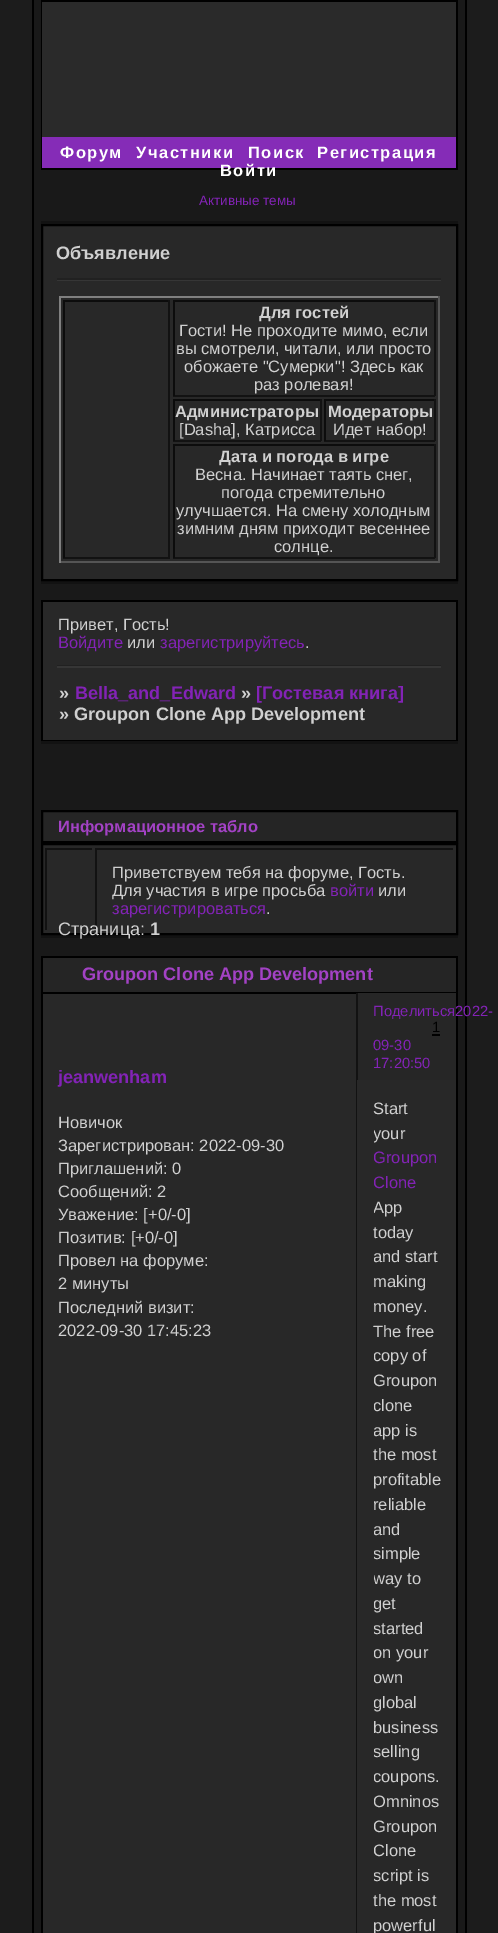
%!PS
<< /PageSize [498 1933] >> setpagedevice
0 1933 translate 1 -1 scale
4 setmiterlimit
0.11 setgray
0 0 498 1933 rectfill
0.098 setgray
34 0 431 1933 rectfill
0 setgray
465 0 2 1933 rectfill
32 0 2 1933 rectfill
41 0 417 2 rectfill
456 0 2 170 rectfill
41 0 2 137 rectfill
0.165 setgray
42 2 414 135 rectfill
0 setgray
41 137 1 33 rectfill
0.522 0.173 0.718 setrgbcolor
42 137 414 31 rectfill
0 setgray
42 168 414 2 rectfill
/LiberationSans-Bold [16.5 0 0 -16.5 0 0] selectfont
1 setgray
60 158 moveto 1.5 0 (Форум) ashow
136 158 moveto 1.5 0 (Участники) ashow
248 158 moveto 1.5 0 (Поиск) ashow
317 158 moveto 1.5 0 (Регистрация) ashow
220 176 moveto 1.5 0 (Войти) ashow
0.071 setgray
41 221 417 3 rectfill
/LiberationSans-Regular [13.5 0 0 -13.5 0 0] selectfont
0.514 0.137 0.714 setrgbcolor
199 205 moveto (Активные темы) show
0.071 setgray
41 581 417 3 rectfill
0.157 setgray
newpath 42 225 moveto 457 225 lineto 457 580 lineto 42 580 lineto closepath gsave fill grestore
0 setgray
2 setlinewidth
stroke
0.212 setgray
57 280 384 1 rectfill
0.129 setgray
57 278 384 2 rectfill
/LiberationSans-Bold [18.1 0 0 -18.1 0 0] selectfont
0.816 setgray
56 259 moveto (Объявление) show
0.502 setgray
59 296 381 2 rectfill
0.333 setgray
438 296 2 267 rectfill
59 561 381 2 rectfill
0.502 setgray
59 296 2 267 rectfill
0.047 setgray
63 300 107 2 rectfill
0.071 setgray
168 300 2 258 rectfill
63 557 107 2 rectfill
0.047 setgray
63 300 2 258 rectfill
173 300 262 2 rectfill
0.071 setgray
434 300 2 96 rectfill
173 395 262 2 rectfill
0.047 setgray
173 300 2 96 rectfill
/LiberationSans-Bold [16.5 0 0 -16.5 0 0] selectfont
0.816 setgray
259 318 moveto (Для гостей) show
/LiberationSans-Regular [16.5 0 0 -16.5 0 0] selectfont
179 336 moveto (Гости! Не проходите мимо, если) show
176 354 moveto (вы смотрели, читали, или просто) show
184 372 moveto (обожаете "Сумерки"! Здесь как) show
254 390 moveto (раз ролевая!) show
0.047 setgray
173 399 148 2 rectfill
0.071 setgray
320 399 2 42 rectfill
173 440 148 2 rectfill
0.047 setgray
173 399 2 42 rectfill
/LiberationSans-Bold [16.5 0 0 -16.5 0 0] selectfont
0.816 setgray
175 417 moveto (Администраторы) show
/LiberationSans-Regular [16.5 0 0 -16.5 0 0] selectfont
179 435 moveto ([Dasha], Катрисса) show
0.047 setgray
324 399 111 2 rectfill
0.071 setgray
434 399 2 42 rectfill
324 440 111 2 rectfill
0.047 setgray
324 399 2 42 rectfill
/LiberationSans-Bold [16.5 0 0 -16.5 0 0] selectfont
0.816 setgray
328 417 moveto (Модераторы) show
/LiberationSans-Regular [16.5 0 0 -16.5 0 0] selectfont
333 435 moveto (Идет набор!) show
0.047 setgray
173 444 262 2 rectfill
0.071 setgray
434 444 2 114 rectfill
173 557 262 2 rectfill
0.047 setgray
173 444 2 114 rectfill
/LiberationSans-Bold [16.5 0 0 -16.5 0 0] selectfont
0.816 setgray
219 462 moveto (Дата и погода в игре) show
/LiberationSans-Regular [16.5 0 0 -16.5 0 0] selectfont
195 480 moveto (Весна. Начинает таять снег,) show
221 498 moveto (погода стремительно) show
176 516 moveto (улучшается. На смену холодным) show
177 534 moveto (зимним дням приходит весеннее) show
274 552 moveto (солнце.) show
0.157 setgray
43 602 413 138 rectfill
0 setgray
41 600 417 2 rectfill
456 600 2 141 rectfill
41 600 2 68 rectfill
0.816 setgray
58 630 moveto (Привет, Гость!) show
0.514 0.137 0.714 setrgbcolor
58 648 moveto (Войдите) show
0.816 setgray
127 648 moveto (или) show
0.514 0.137 0.714 setrgbcolor
160 648 moveto (зарегистрируйтесь) show
0.816 setgray
305 648 moveto (.) show
0.129 setgray
57 665 384 1 rectfill
0.212 setgray
57 666 384 2 rectfill
0.071 setgray
41 741 417 3 rectfill
0 setgray
41 740 417 1 rectfill
41 665 2 76 rectfill
/LiberationSans-Bold [18.1 0 0 -18.1 0 0] selectfont
0.816 setgray
59 699 moveto (») show
0.514 0.137 0.714 setrgbcolor
75 699 moveto (Bella_and_Edward) show
0.816 setgray
241 699 moveto (») show
0.514 0.137 0.714 setrgbcolor
256 699 moveto ([Гостевая книга]) show
0.816 setgray
59 720 moveto (» Groupon Clone App Development) show
0.071 setgray
41 935 417 3 rectfill
0.145 setgray
newpath 42 811 moveto 457 811 lineto 457 842 lineto 42 842 lineto closepath gsave fill grestore
0 setgray
stroke
/LiberationSans-Bold [16.5 0 0 -16.5 0 0] selectfont
0.639 0.259 0.773 setrgbcolor
58 832 moveto (Информационное табло) show
0.157 setgray
newpath 42 844 moveto 457 844 lineto 457 934 lineto 42 934 lineto closepath gsave fill grestore
0 setgray
stroke
0.071 setgray
45 848 47 2 rectfill
45 848 2 82 rectfill
95 848 358 2 rectfill
95 848 2 82 rectfill
/LiberationSans-Regular [16.5 0 0 -16.5 0 0] selectfont
0.816 setgray
112 878 moveto (Приветствуем тебя на форуме, Гость.) show
112 896 moveto (Для участия в игре просьба) show
0.514 0.137 0.714 setrgbcolor
330 896 moveto (войти) show
0.816 setgray
378 896 moveto (или) show
0.514 0.137 0.714 setrgbcolor
112 914 moveto (зарегистрироваться) show
0.816 setgray
266 914 moveto (.) show
/LiberationSans-Regular [18.1 0 0 -18.1 0 0] selectfont
58 935 moveto (Страница:) show
/LiberationSans-Bold [18.1 0 0 -18.1 0 0] selectfont
150 935 moveto (1) show
0.145 setgray
43 958 413 34 rectfill
0 setgray
41 956 417 2 rectfill
456 956 2 36 rectfill
41 956 2 36 rectfill
0.639 0.259 0.773 setrgbcolor
82 980 moveto (Groupon Clone App Development) show
0.157 setgray
43 994 313 939 rectfill
0 setgray
41 992 417 2 rectfill
456 992 2 941 rectfill
41 992 2 941 rectfill
0.149 setgray
358 993 98 87 rectfill
0.071 setgray
356 993 2 89 rectfill
/LiberationSans-Regular [14.75 0 0 -14.75 0 0] selectfont
0.514 0.137 0.714 setrgbcolor
373 1016 moveto (Поделиться2022-) show
0 setgray
432 1032 moveto (1) show
432 1034 8 2 rectfill
0.514 0.137 0.714 setrgbcolor
373 1050 moveto (09-30) show
373 1068 moveto (17:20:50) show
/LiberationSans-Bold [18.1 0 0 -18.1 0 0] selectfont
58 1083 moveto (jeanwenham) show
/LiberationSans-Regular [16.5 0 0 -16.5 0 0] selectfont
0.816 setgray
58 1128 moveto (Новичок) show
58 1151 moveto (Зарегистрирован: 2022-09-30) show
58 1174 moveto (Приглашений: 0) show
58 1197 moveto (Сообщений: 2) show
58 1220 moveto (Уважение: [+0/-0]) show
58 1243 moveto (Позитив: [+0/-0]) show
58 1266 moveto (Провел на форуме:) show
58 1289 moveto (2 минуты) show
58 1313 moveto (Последний визит:) show
58 1336 moveto (2022-09-30 17:45:23) show
0.071 setgray
356 1080 1 853 rectfill
0.157 setgray
357 1080 99 853 rectfill
0.816 setgray
373 1114 moveto (Start) show
gsave
374 1097 66 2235 rectclip
373 1139 moveto (your) show
0.514 0.137 0.714 setrgbcolor
373 1163 moveto (Groupon) show
373 1188 moveto (Clone) show
0.816 setgray
373 1213 moveto (App) show
grestore
373 1238 moveto (today) show
gsave
374 1097 66 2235 rectclip
373 1262 moveto (and start) show
grestore
373 1287 moveto (making) show
373 1312 moveto (money.) show
373 1337 moveto (The free) show
gsave
374 1097 66 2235 rectclip
373 1361 moveto (copy of) show
373 1386 moveto (Groupon) show
373 1411 moveto (clone) show
373 1436 moveto (app is) show
grestore
373 1460 moveto (the most) show
373 1485 moveto (profitable) show
373 1510 moveto (reliable) show
gsave
374 1097 66 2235 rectclip
373 1535 moveto (and) show
373 1559 moveto (simple) show
373 1584 moveto (way to) show
373 1609 moveto (get) show
373 1634 moveto (started) show
373 1658 moveto (on your) show
373 1683 moveto (own) show
373 1708 moveto (global) show
grestore
373 1733 moveto (business) show
gsave
374 1097 66 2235 rectclip
373 1757 moveto (selling) show
373 1782 moveto (coupons.) show
373 1807 moveto (Omninos) show
373 1832 moveto (Groupon) show
373 1856 moveto (Clone) show
373 1881 moveto (script is) show
grestore
373 1906 moveto (the most) show
373 1931 moveto (powerful) show
showpage
